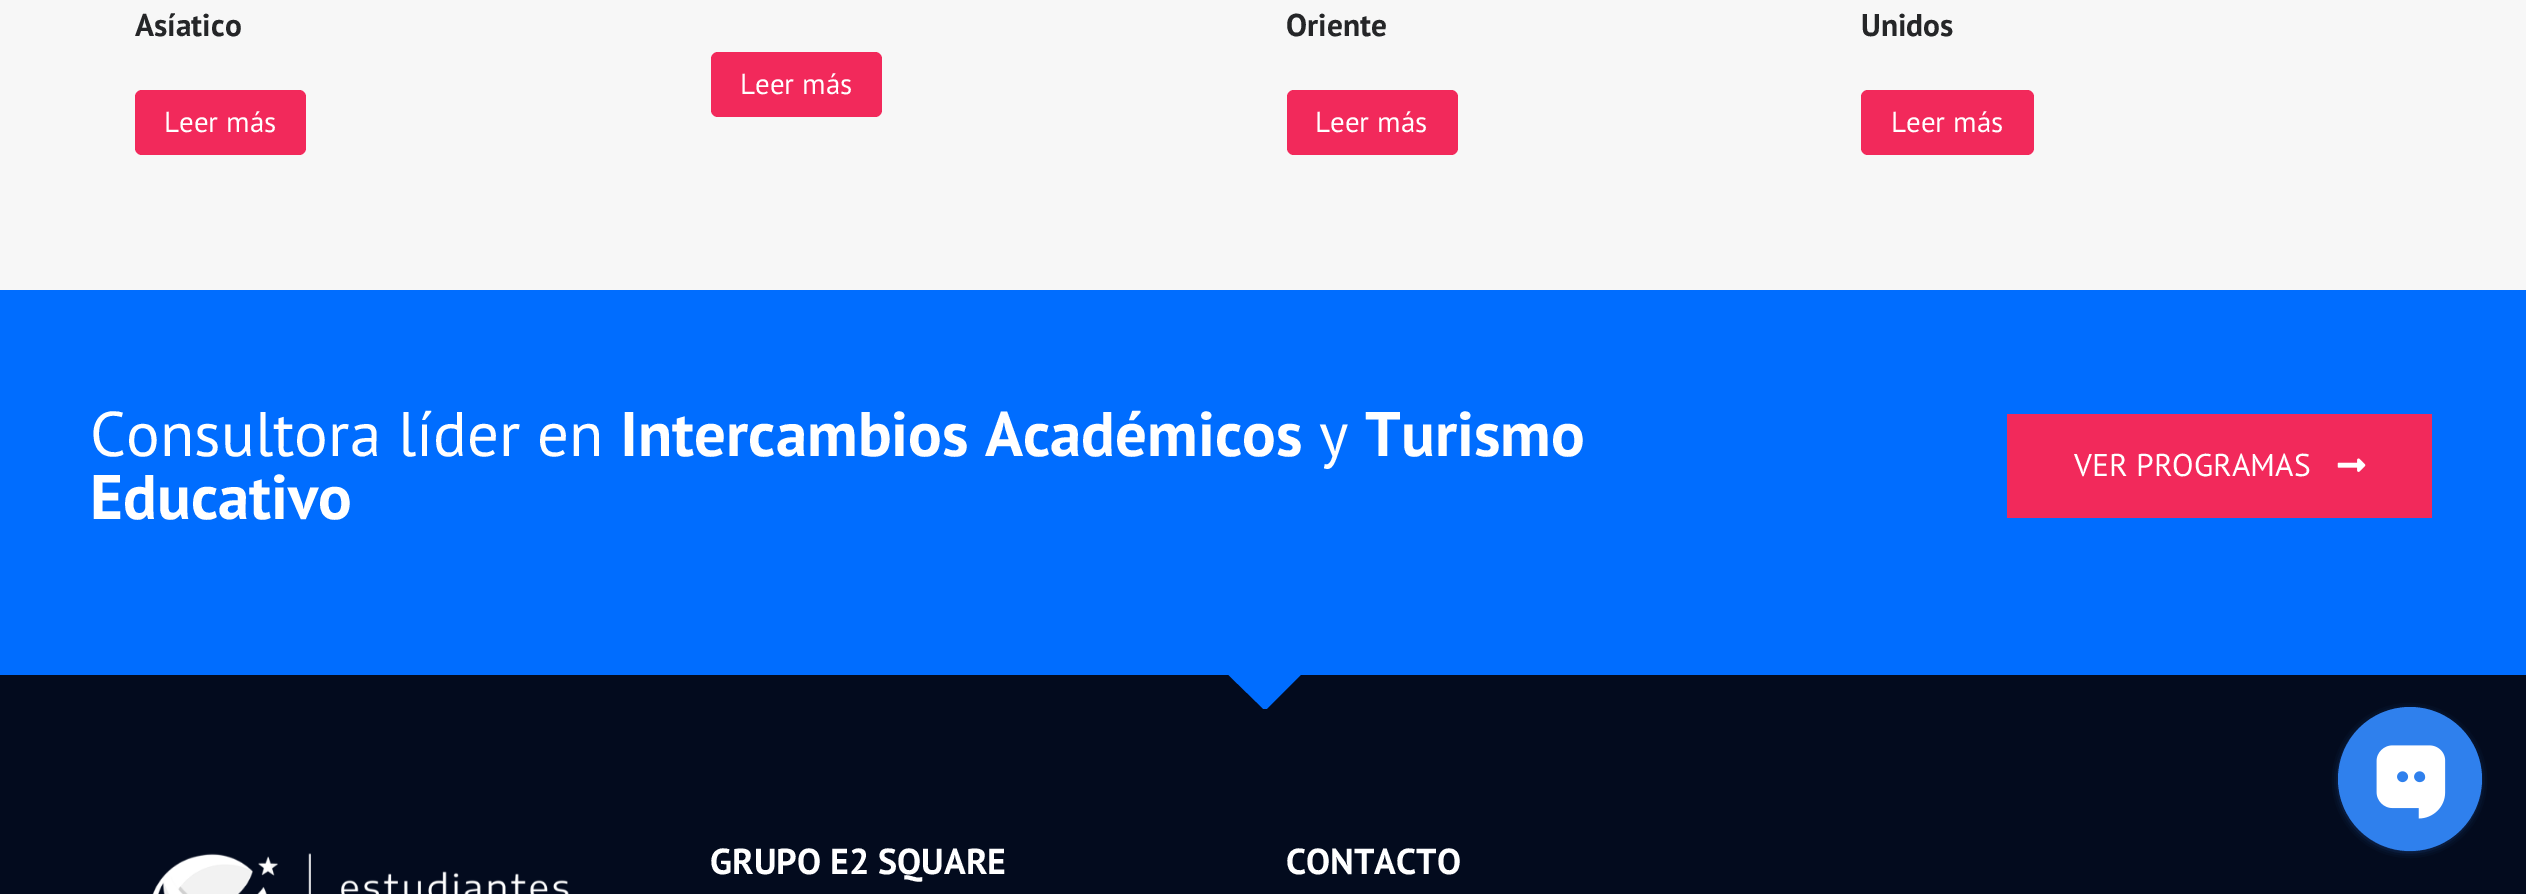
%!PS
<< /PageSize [2526 894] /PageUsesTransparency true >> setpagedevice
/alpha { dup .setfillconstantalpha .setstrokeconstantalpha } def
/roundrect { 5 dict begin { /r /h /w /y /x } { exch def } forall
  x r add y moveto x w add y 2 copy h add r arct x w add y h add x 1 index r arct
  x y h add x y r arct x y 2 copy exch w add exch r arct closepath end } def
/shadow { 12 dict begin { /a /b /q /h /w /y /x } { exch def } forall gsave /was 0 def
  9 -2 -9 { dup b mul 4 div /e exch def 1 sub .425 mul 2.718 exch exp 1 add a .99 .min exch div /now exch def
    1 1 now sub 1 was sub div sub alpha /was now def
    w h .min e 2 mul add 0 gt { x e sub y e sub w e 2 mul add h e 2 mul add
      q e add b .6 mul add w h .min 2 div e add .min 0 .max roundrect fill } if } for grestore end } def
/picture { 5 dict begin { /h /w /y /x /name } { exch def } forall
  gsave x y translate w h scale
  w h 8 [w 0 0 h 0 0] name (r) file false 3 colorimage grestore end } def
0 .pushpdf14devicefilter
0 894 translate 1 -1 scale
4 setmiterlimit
0.969 setgray
0 0 2526 894 rectfill
/PTSans-Bold [31.5 0 0 -31.5 0 0] selectfont
0.145 0.149 0.157 setrgbcolor
135 36 moveto (Asíatico) show
0.949 0.161 0.357 setrgbcolor
135 90 171 65 7 roundrect fill
/PTSans-Regular [29 0 0 -29 0 0] selectfont
1 setgray
164 132 moveto (Leer más) show
0.949 0.161 0.357 setrgbcolor
711 52 171 65 7 roundrect fill
1 setgray
740 94 moveto (Leer más) show
/PTSans-Bold [31.5 0 0 -31.5 0 0] selectfont
0.145 0.149 0.157 setrgbcolor
1286 36 moveto (Oriente) show
0.949 0.161 0.357 setrgbcolor
1287 90 171 65 7 roundrect fill
/PTSans-Regular [29 0 0 -29 0 0] selectfont
1 setgray
1315 132 moveto (Leer más) show
/PTSans-Bold [31.5 0 0 -31.5 0 0] selectfont
0.145 0.149 0.157 setrgbcolor
1861 36 moveto (Unidos) show
0.949 0.161 0.357 setrgbcolor
1861 90 173 65 7 roundrect fill
/PTSans-Regular [29 0 0 -29 0 0] selectfont
1 setgray
1891 132 moveto (Leer más) show
0 0.427 1 setrgbcolor
0 290 2526 419 rectfill
/PTSans-Regular [63 0 0 -63 0 0] selectfont
1 setgray
90 456 moveto (Consultora líder en) show
/PTSans-Bold [63 0 0 -63 0 0] selectfont
620 456 moveto (Intercambios Académicos) show
/PTSans-Regular [63 0 0 -63 0 0] selectfont
1319 456 moveto (y) show
/PTSans-Bold [63 0 0 -63 0 0] selectfont
1365 456 moveto (Turismo) show
90 519 moveto (Educativo) show
0.949 0.161 0.357 setrgbcolor
2007 414 425 104 rectfill
/PTSans-Regular [31.5 0 0 -31.5 0 0] selectfont
1 setgray
2074 476 moveto (VER PROGRAMAS) show
(img1.rgb) 2337 458 29 14 picture
0.012 0.043 0.118 setrgbcolor
newpath 1301 675 moveto 1265 711 lineto 1228 675 lineto 0 675 lineto 0 711 lineto 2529 711 lineto 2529 675 lineto fill
0 709 2526 185 rectfill
(img2.rgb) 152 853 417 41 picture
/PTSans-Bold [36 0 0 -36 0 0] selectfont
1 setgray
710 874 moveto (GRUPO E2 SQUARE) show
1286 874 moveto (CONTACTO) show
0.184 0.502 0.929 setrgbcolor
2342 713 135 135 67.5 4.5 1 shadow
newpath 2410 779 72 0 360 arc closepath fill
(img3.rgb) 2376 745 70 74 picture
.poppdf14devicefilter showpage
